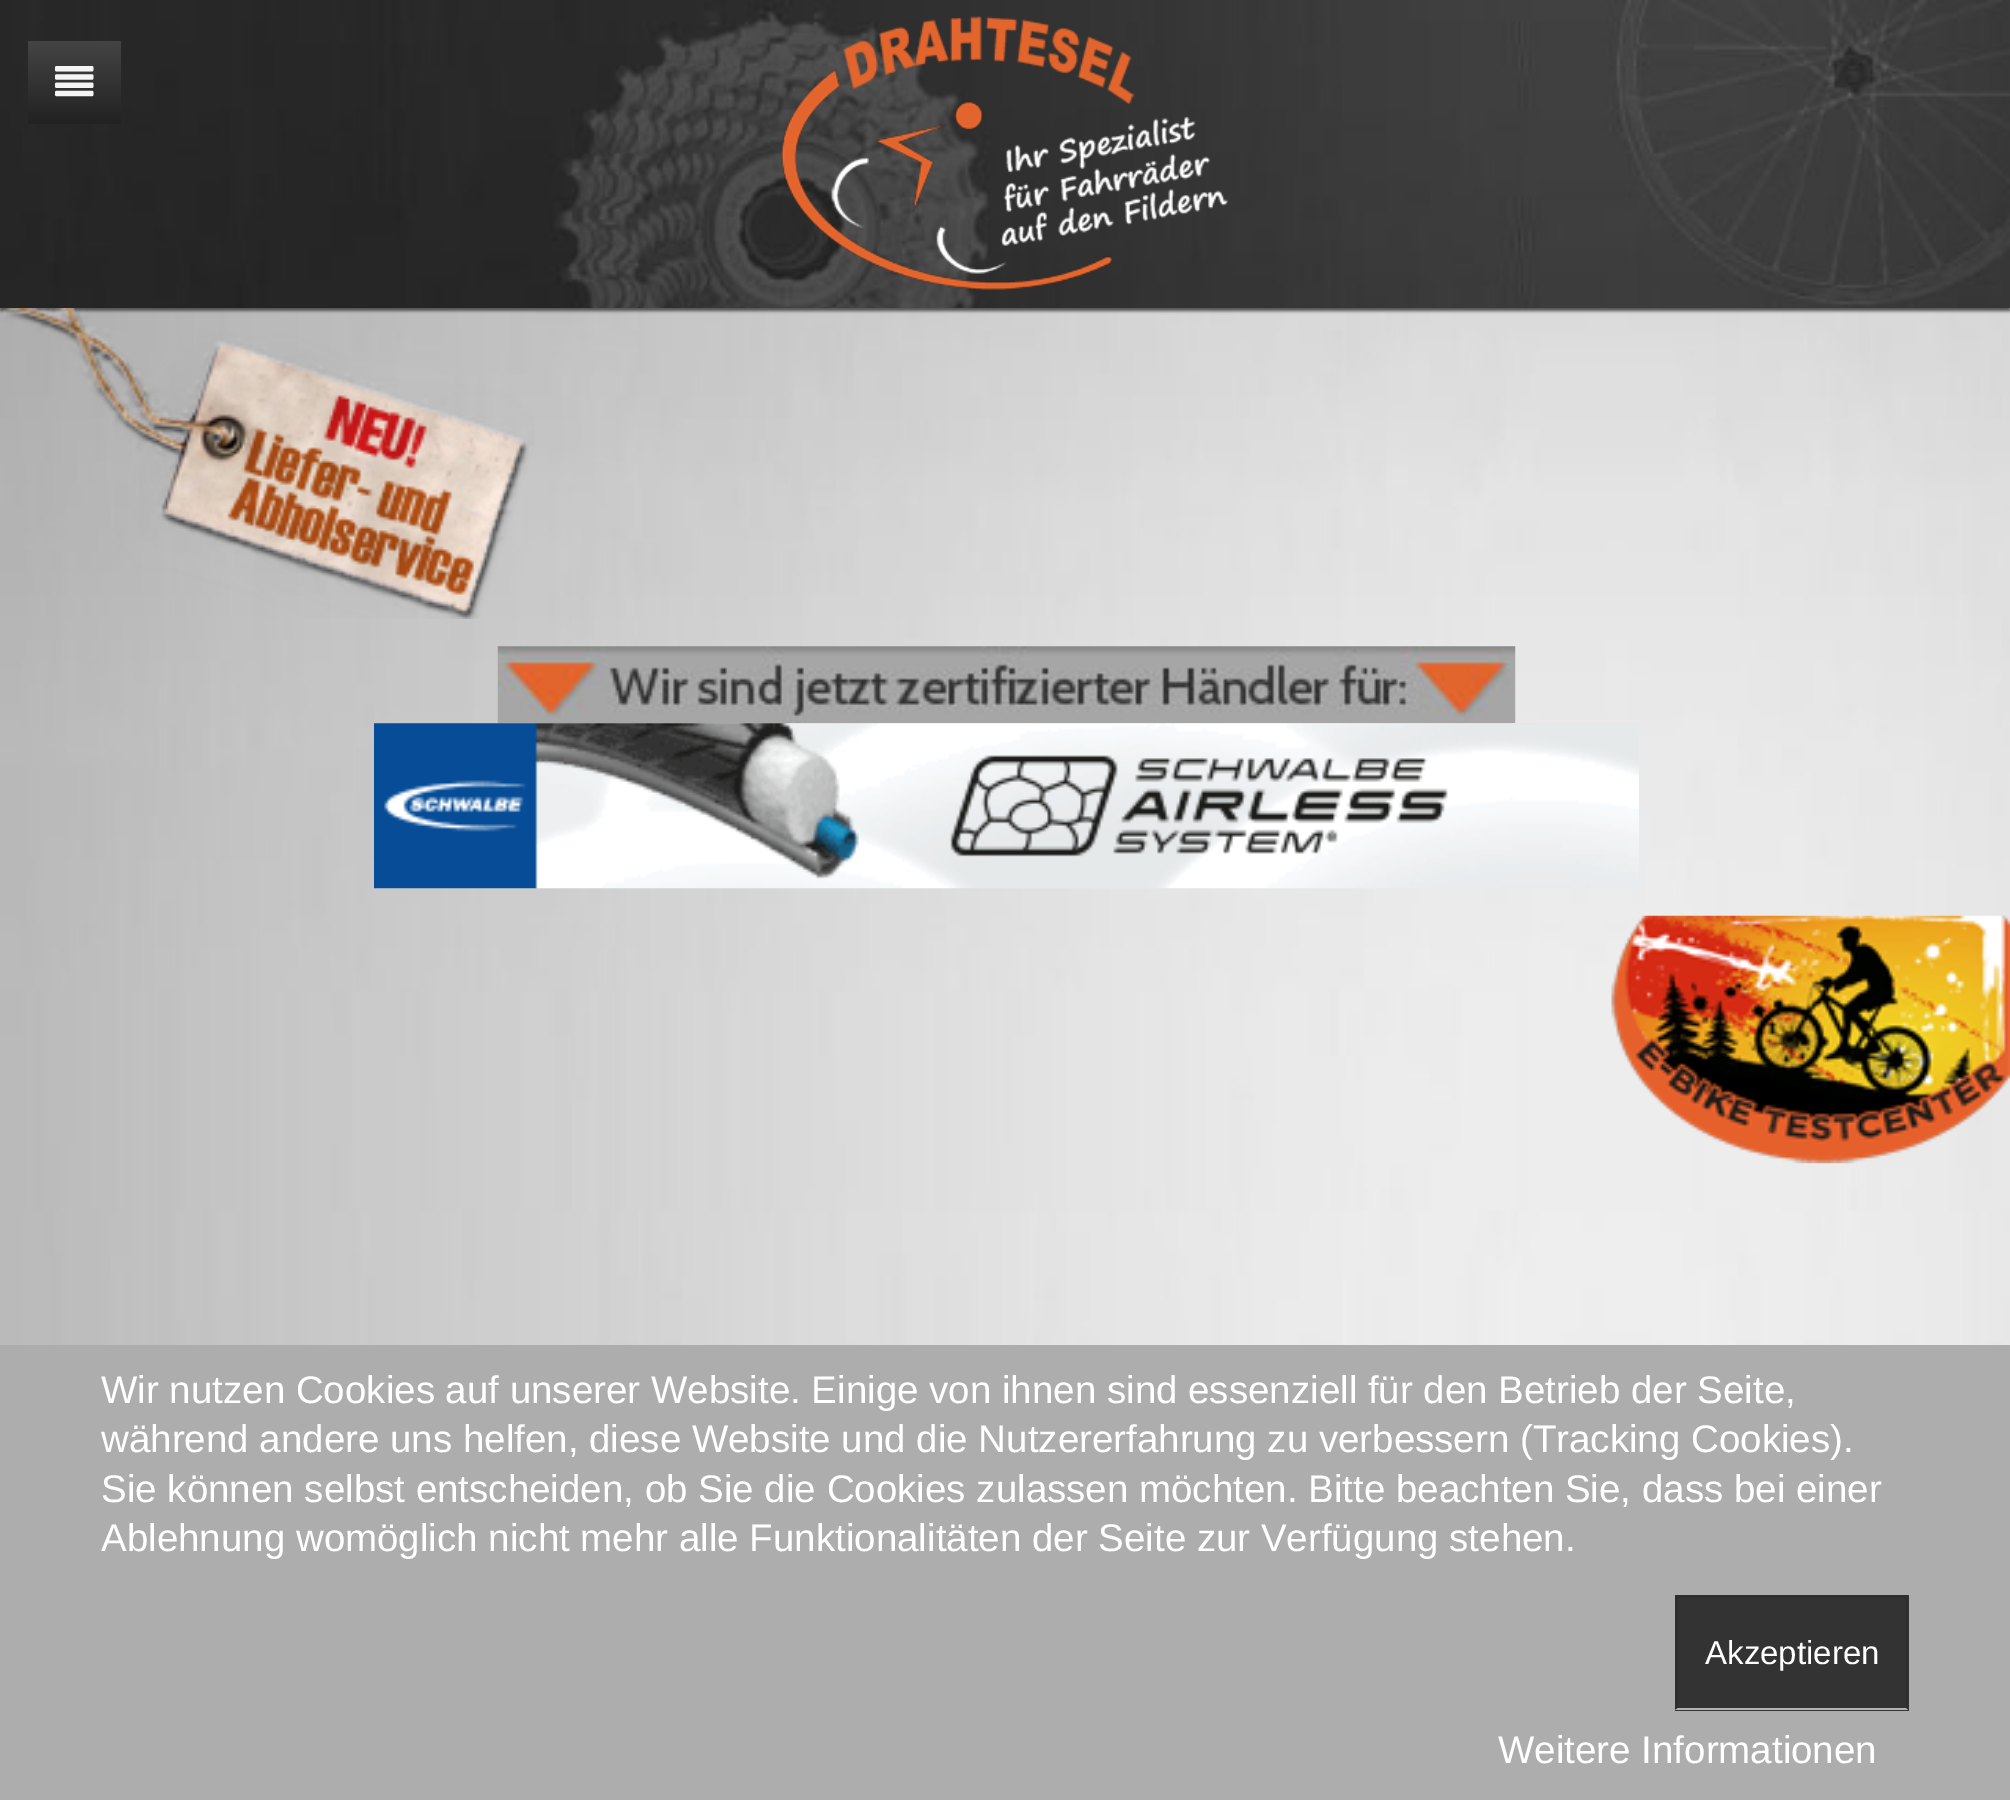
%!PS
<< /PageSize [2010 1800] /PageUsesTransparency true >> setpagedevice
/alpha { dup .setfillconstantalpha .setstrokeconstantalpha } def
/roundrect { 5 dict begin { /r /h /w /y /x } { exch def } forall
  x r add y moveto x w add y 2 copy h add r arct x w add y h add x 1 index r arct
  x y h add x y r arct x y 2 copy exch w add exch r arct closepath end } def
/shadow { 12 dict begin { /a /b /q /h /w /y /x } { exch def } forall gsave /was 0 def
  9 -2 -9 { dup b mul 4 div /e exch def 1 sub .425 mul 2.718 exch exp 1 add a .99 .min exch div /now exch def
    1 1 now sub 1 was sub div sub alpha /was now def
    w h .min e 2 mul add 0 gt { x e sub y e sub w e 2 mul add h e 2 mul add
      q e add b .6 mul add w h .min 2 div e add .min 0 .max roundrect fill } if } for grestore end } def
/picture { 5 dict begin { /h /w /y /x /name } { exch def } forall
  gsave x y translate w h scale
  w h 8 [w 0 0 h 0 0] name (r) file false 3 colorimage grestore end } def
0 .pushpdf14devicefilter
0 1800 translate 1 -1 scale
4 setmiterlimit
1 setgray
0 0 2010 1800 rectfill
(img1.rgb) 0 308 2010 1037 picture
0.325 setgray
0 3 2010 308 0 1.5 1 shadow
(img2.rgb) 0 0 2010 308 picture
gsave newpath 28 41 moveto 121 41 lineto 121 124 lineto 28 124 lineto closepath clip newpath
<< /ShadingType 2 /ColorSpace /DeviceRGB /Coords [74 41 74 124] /Extend [true true] /Function << /FunctionType 2 /Domain [0 1] /C0 [0.267 0.267 0.267] /C1 [0.133 0.133 0.133] /N 1 >> >> shfill grestore
(img3.rgb) 55 66 39 31 picture
(img4.rgb) 781 16 447 275 picture
(img5.rgb) 3 308 532 311 picture
(img6.rgb) 497 646 1019 78 picture
(img7.rgb) 374 723 1265 166 picture
(img8.rgb) 1611 915 399 249 picture
0.678 setgray
0 1345 2010 455 rectfill
/LiberationSans-Regular [38.5 0 0 -38.5 0 0] selectfont
1 setgray
101 1403 moveto (Wir nutzen Cookies auf unserer Website. Einige von ihnen sind essenziell für den Betrieb der Seite,) show
101 1452 moveto (während andere uns helfen, diese Website und die Nutzererfahrung zu verbessern \(Tracking Cookies\).) show
101 1502 moveto (Sie können selbst entscheiden, ob Sie die Cookies zulassen möchten. Bitte beachten Sie, dass bei einer) show
101 1551 moveto (Ablehnung womöglich nicht mehr alle Funktionalitäten der Seite zur Verfügung stehen.) show
0.2 setgray
1675 1595 234 116 rectfill
0.18 setgray
newpath 1675 1595 moveto 1908 1595 lineto 1906 1598 lineto 1678 1598 lineto closepath fill
newpath 1908 1595 moveto 1908 1710 lineto 1906 1708 lineto 1906 1598 lineto closepath fill
0.702 setgray
newpath 1908 1710 moveto 1675 1710 lineto 1678 1708 lineto 1906 1708 lineto closepath fill
0.1 alpha
0 setgray
newpath 1675 1710 moveto 1675 1595 lineto 1678 1598 lineto 1678 1708 lineto closepath fill
/LiberationSans-Regular [33 0 0 -33 0 0] selectfont
1 alpha
1 setgray
1705 1664 moveto (Akzeptieren) show
/LiberationSans-Regular [38.5 0 0 -38.5 0 0] selectfont
1498 1763 moveto (Weitere Informationen) show
.poppdf14devicefilter showpage
